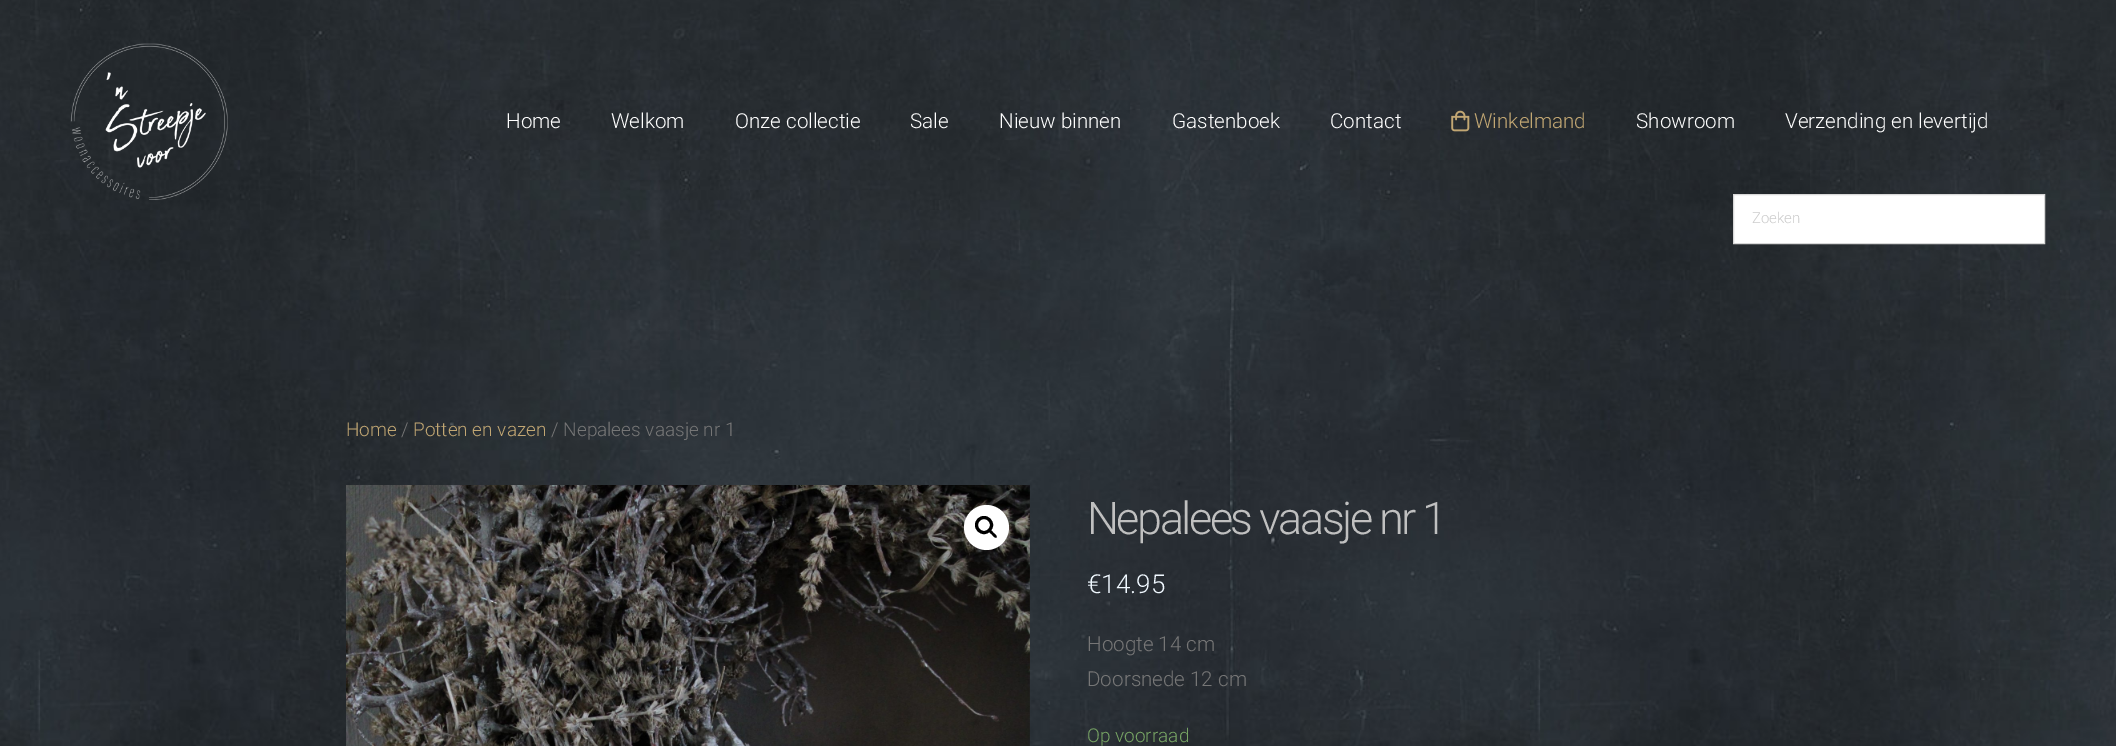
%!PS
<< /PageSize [2116 746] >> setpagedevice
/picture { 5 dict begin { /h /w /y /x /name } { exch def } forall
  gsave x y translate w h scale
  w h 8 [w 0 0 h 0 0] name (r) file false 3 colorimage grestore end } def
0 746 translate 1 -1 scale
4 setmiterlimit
1 setgray
0 0 2116 746 rectfill
(img1.rgb) 0 0 2116 746 picture
(img2.rgb) 71 43 157 157 picture
/Roboto-Light [20.6 0 0 -20.6 0 0] selectfont
506 128 moveto (Home) show
611 128 moveto (Welkom) show
735 128 moveto (Onze collectie) show
910 128 moveto (Sale) show
999 128 moveto (Nieuw binnen) show
1172 128 moveto (Gastenboek) show
1330 128 moveto (Contact) show
(img3.rgb) 1451 110 19 22 picture
0.761 0.655 0.451 setrgbcolor
1474 128 moveto (Winkelmand) show
1 setgray
1636 128 moveto (Showroom) show
1785 128 moveto (Verzending en levertijd) show
newpath 1733.5 194.5 moveto 2044.5 194.5 lineto 2044.5 243.5 lineto 1733.5 243.5 lineto closepath gsave fill grestore
0.847 setgray
stroke
/Roboto-Light [15 0 0 -15 0 0] selectfont
0.8 setgray
1752 223 moveto (Zoeken) show
/Roboto-Light [19 0 0 -19 0 0] selectfont
0.761 0.655 0.451 setrgbcolor
346 436 moveto (Home) show
0.463 setgray
401 436 moveto (/) show
0.761 0.655 0.451 setrgbcolor
413 436 moveto (Potten en vazen) show
0.463 setgray
551 436 moveto (/ Nepalees vaasje nr 1) show
(img5.rgb) 1029 490 1 256 picture
(img4.rgb) 346 485 684 261 picture
1 setgray
newpath 986.5 527.5 22.5 0 360 arc closepath fill
0 setgray
3 setlinewidth
newpath 984 525 7.5 0 360 arc closepath stroke
newpath 989 530 moveto 990.5 529 993 532 993.5 533 curveto 994.5 533.5 997.5 536 996.5 537.5 curveto 995 538.5 992.5 535.5 992 534.5 curveto 991 534 988 531.5 989 530 curveto closepath fill
/Roboto-Light [45 0 0 -45 0 0] selectfont
0.753 setgray
1087 534 moveto -2.5 0 (Nepalees vaasje nr 1) ashow
/Roboto-Light [26 0 0 -26 0 0] selectfont
0.941 0.973 1 setrgbcolor
1087 593 moveto (€14.95) show
/Roboto-Light [20.6 0 0 -20.6 0 0] selectfont
0.463 setgray
1087 651 moveto (Hoogte 14 cm) show
1087 686 moveto (Doorsnede 12 cm) show
/Roboto-Light [19 0 0 -19 0 0] selectfont
0.467 0.643 0.392 setrgbcolor
1087 742 moveto (Op voorraad) show
showpage
